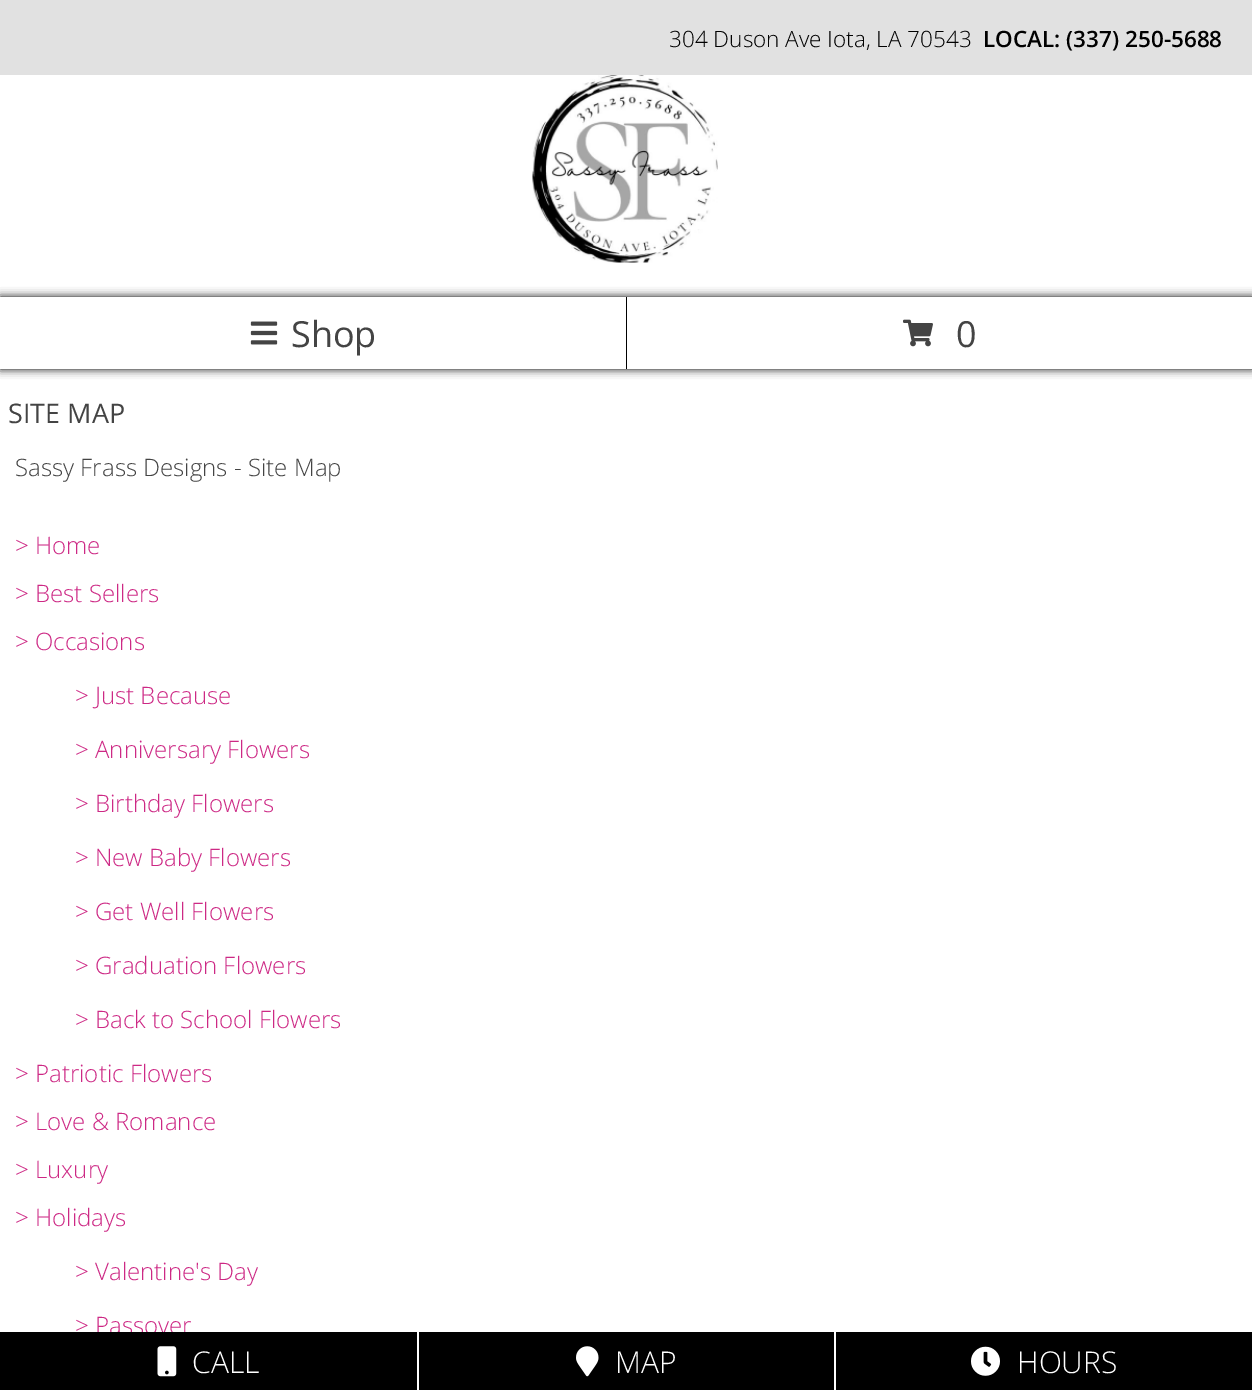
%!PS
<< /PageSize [1252 1390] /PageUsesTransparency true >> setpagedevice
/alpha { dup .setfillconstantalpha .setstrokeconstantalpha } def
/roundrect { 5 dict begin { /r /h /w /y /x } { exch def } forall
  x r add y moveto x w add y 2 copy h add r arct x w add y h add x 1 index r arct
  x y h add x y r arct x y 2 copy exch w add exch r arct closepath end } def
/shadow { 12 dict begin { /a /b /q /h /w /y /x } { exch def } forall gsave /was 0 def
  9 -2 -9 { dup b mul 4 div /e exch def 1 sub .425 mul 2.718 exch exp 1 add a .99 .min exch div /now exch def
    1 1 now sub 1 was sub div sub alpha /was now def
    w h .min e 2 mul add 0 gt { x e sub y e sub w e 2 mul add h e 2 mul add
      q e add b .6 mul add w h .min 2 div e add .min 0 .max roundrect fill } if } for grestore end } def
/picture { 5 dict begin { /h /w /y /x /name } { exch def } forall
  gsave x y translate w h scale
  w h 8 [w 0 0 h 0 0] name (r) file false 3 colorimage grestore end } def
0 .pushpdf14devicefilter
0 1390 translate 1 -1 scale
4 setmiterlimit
1 setgray
0 0 1252 1390 rectfill
0.882 setgray
0 0 1252 75 rectfill
/OpenSans-Light [22.5 0 0 -22.5 0 0] selectfont
0 setgray
669 47 moveto (304 Duson Ave Iota, LA 70543) show
/OpenSans-SemiBold [22.5 0 0 -22.5 0 0] selectfont
983 47 moveto (LOCAL: \(337\) 250-5688) show
(img1.rgb) 532 75 186 188 picture
0 297 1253 72 0 4.5 1 shadow
626 297 1 72 rectfill
1 setgray
0 297 626 72 rectfill
(img2.rgb) 250 321 28 24 picture
/OpenSans-Regular [36 0 0 -36 0 0] selectfont
0.267 setgray
291 347 moveto (Shop) show
1 setgray
627 297 625 72 rectfill
(img3.rgb) 903 319 30 28 picture
0.267 setgray
956 347 moveto (0) show
/OpenSans-Regular [27 0 0 -27 0 0] selectfont
8 423 moveto (SITE MAP) show
/OpenSans-Light [24 0 0 -24 0 0] selectfont
15 476 moveto (Sassy Frass Designs - Site Map) show
0.804 0.161 0.522 setrgbcolor
15 554 moveto (> Home) show
15 602 moveto (> Best Sellers) show
15 650 moveto (> Occasions) show
75 704 moveto (> Just Because) show
75 758 moveto (> Anniversary Flowers) show
75 812 moveto (> Birthday Flowers) show
75 866 moveto (> New Baby Flowers) show
75 920 moveto (> Get Well Flowers) show
75 974 moveto (> Graduation Flowers) show
75 1028 moveto (> Back to School Flowers) show
15 1082 moveto (> Patriotic Flowers) show
15 1130 moveto (> Love & Romance) show
15 1178 moveto (> Luxury) show
15 1226 moveto (> Holidays) show
75 1280 moveto (> Valentine's Day) show
75 1334 moveto (> Passover) show
0 setgray
0 1332 417 58 rectfill
(img4.rgb) 157 1346 20 31 picture
/OpenSans-Light [30 0 0 -30 0 0] selectfont
1 setgray
192 1373 moveto (CALL) show
0 setgray
419 1332 415 58 rectfill
(img5.rgb) 576 1346 23 31 picture
1 setgray
615 1373 moveto (MAP) show
0 setgray
836 1332 416 58 rectfill
(img6.rgb) 971 1346 29 30 picture
1 setgray
1017 1373 moveto (HOURS) show
.poppdf14devicefilter showpage
